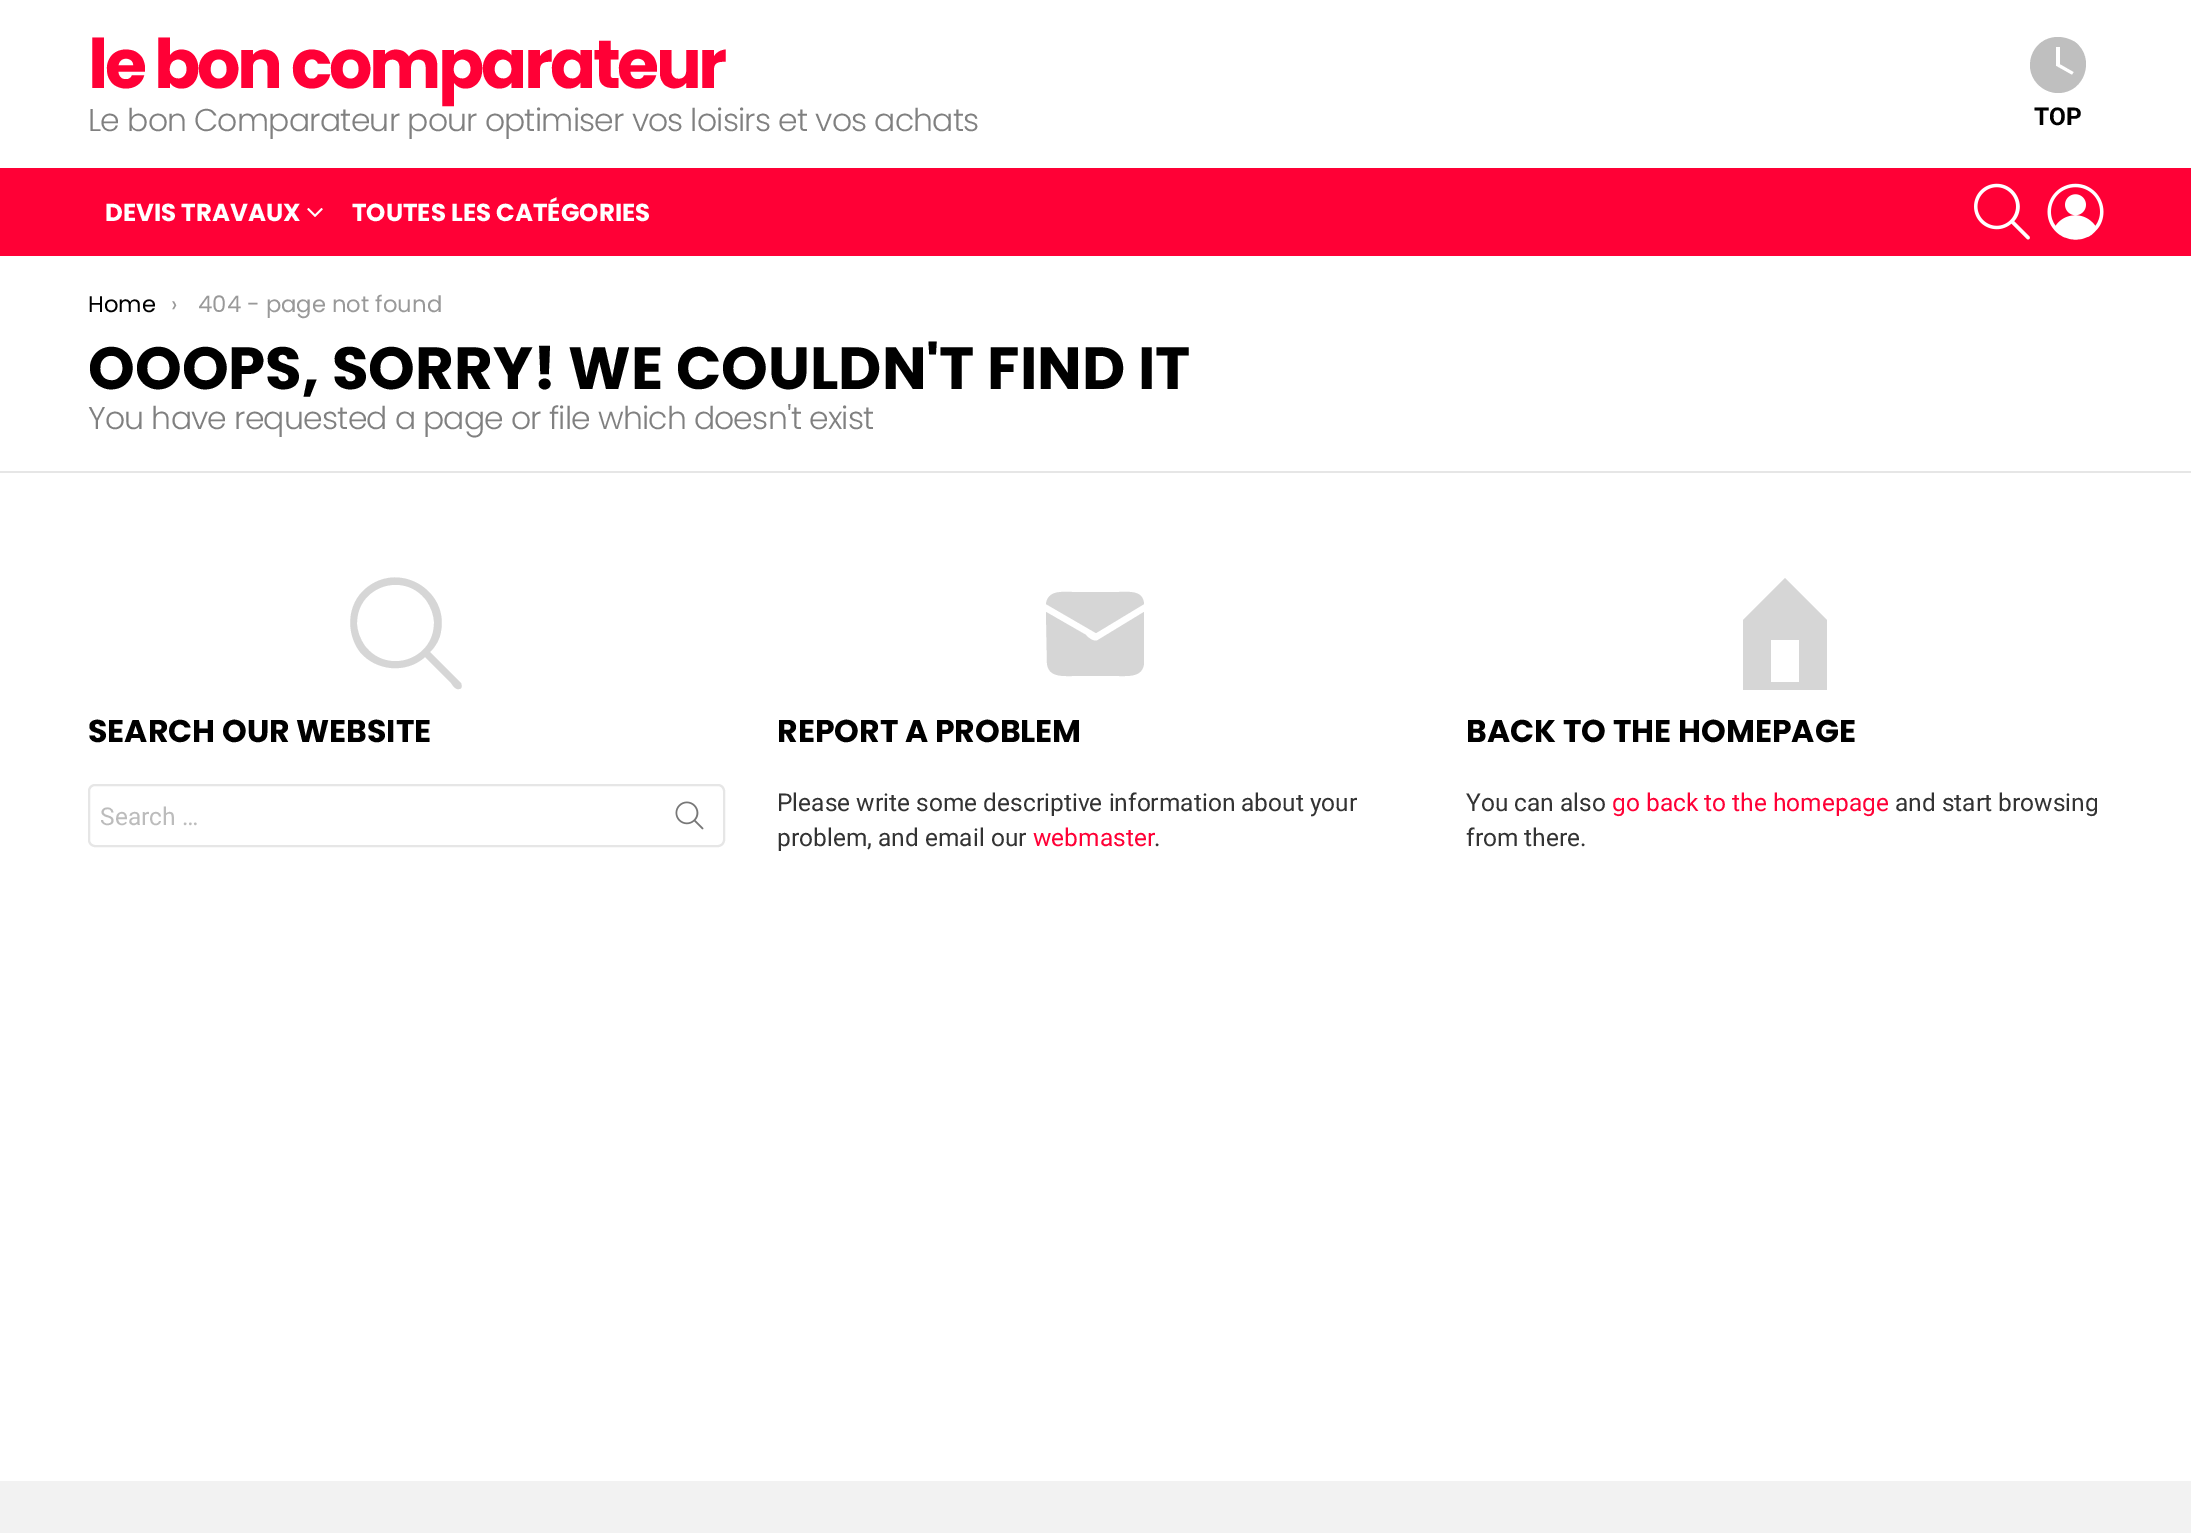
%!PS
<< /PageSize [2191 1533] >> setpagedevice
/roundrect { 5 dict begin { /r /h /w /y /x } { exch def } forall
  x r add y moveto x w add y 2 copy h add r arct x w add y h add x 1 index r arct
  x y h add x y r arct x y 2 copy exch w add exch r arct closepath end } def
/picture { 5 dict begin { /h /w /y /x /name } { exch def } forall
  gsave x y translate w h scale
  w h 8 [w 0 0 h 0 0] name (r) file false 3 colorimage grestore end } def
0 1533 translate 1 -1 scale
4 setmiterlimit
1 setgray
0 0 2191 1533 rectfill
/Poppins-Bold [68.25 0 0 -68.25 0 0] selectfont
1 0 0.212 setrgbcolor
88 88 moveto -3.4 0 (le bon comparateur) ashow
/Poppins-Light [31.5 0 0 -31.5 0 0] selectfont
0.502 setgray
88 131 moveto -0.8 0 (Le bon Comparateur pour optimiser vos loisirs et vos achats) ashow
0.749 setgray
newpath 2058 37 moveto 2031 37 2020 71 2041 87 curveto 2046 91 2052 93 2058 93 curveto 2085 93 2096 58 2075 42 curveto 2070 39 2064 37 2058 37 curveto closepath 2072 75 moveto 2056 66 lineto 2056 47 lineto 2060 47 lineto 2060 64 lineto 2074 72 lineto closepath fill
/Roboto-Bold [24.5 0 0 -24.5 0 0] selectfont
0 setgray
2034 125 moveto (TOP) show
1 0 0.212 setrgbcolor
0 168 2191 88 rectfill
/Poppins-Bold [24.5 0 0 -24.5 0 0] selectfont
1 setgray
105 221 moveto (DEVIS TRAVAUX) show
(img1.rgb) 307 208 16 9 picture
352 221 moveto (TOUTES LES CATÉGORIES) show
(img2.rgb) 1974 183 56 57 picture
(img3.rgb) 2047 183 57 57 picture
/Poppins-Regular [22.75 0 0 -22.75 0 0] selectfont
0 setgray
88 312 moveto (Home) show
0.6 setgray
171 312 moveto (›) show
198 312 moveto (404 - page not found) show
/Poppins-Bold [59.5 0 0 -59.5 0 0] selectfont
0 setgray
88 389 moveto (OOOPS, SORRY! WE COULDN'T FIND IT) show
/Poppins-Light [31.5 0 0 -31.5 0 0] selectfont
0.502 setgray
88 429 moveto -0.8 0 (You have requested a page or file which doesn't exist) ashow
0.902 setgray
0 471 2191 2 rectfill
0.839 setgray
newpath 461 683 moveto 430 652 lineto 436 646 440 639 441 631 curveto 448 593 405 564 372 584 curveto 362 590 355 599 352 610 curveto 348 624 351 640 360 652 curveto 376 671 406 674 425 657 curveto 451 683 lineto 452 684 455 690 459 689 curveto 462 689 462 686 461 683 curveto closepath 357 623 moveto 357 586 404 571 426 600 curveto 431 607 434 615 434 623 curveto 434 660 387 675 365 646 curveto 360 639 357 631 357 623 curveto closepath fill
/Poppins-Bold [31.5 0 0 -31.5 0 0] selectfont
0 setgray
88 742 moveto (SEARCH OUR WEBSITE) show
0.902 setgray
2 setlinewidth
89 785 635 61 6 roundrect stroke
/Roboto-Regular [24.5 0 0 -24.5 0 0] selectfont
0.737 setgray
100 825 moveto (Search …) show
(img4.rgb) 675 801 29 29 picture
0.839 setgray
newpath 1096 633 moveto 1144 604 lineto 1143 590 1129 592 1119 592 curveto 1072 592 lineto 1062 592 1048 590 1046 604 curveto closepath 1098 640 moveto 1094 643 1086 636 1086 635 curveto 1046 612 lineto 1047 663 lineto 1048 677 1062 676 1072 676 curveto 1119 676 lineto 1129 676 1143 677 1144 663 curveto 1144 612 lineto closepath fill
/Poppins-Bold [31.5 0 0 -31.5 0 0] selectfont
0 setgray
777 742 moveto (REPORT A PROBLEM) show
/Roboto-Regular [24.5 0 0 -24.5 0 0] selectfont
0.2 setgray
777 811 moveto (Please write some descriptive information about your) show
777 846 moveto (problem, and email our) show
1 0 0.212 setrgbcolor
1033 846 moveto (webmaster) show
0.2 setgray
1154 846 moveto (.) show
0.839 setgray
newpath 1785 578 moveto 1743 620 lineto 1743 690 lineto 1827 690 lineto 1827 620 lineto closepath 1799 682 moveto 1771 682 lineto 1771 640 lineto 1799 640 lineto closepath fill
/Poppins-Bold [31.5 0 0 -31.5 0 0] selectfont
0 setgray
1466 742 moveto (BACK TO THE HOMEPAGE) show
/Roboto-Regular [24.5 0 0 -24.5 0 0] selectfont
0.2 setgray
1466 811 moveto (You can also) show
1 0 0.212 setrgbcolor
1612 811 moveto (go back to the homepage) show
0.2 setgray
1895 811 moveto (and start browsing) show
1466 846 moveto (from there.) show
0.949 setgray
0 1481 2191 52 rectfill
showpage
